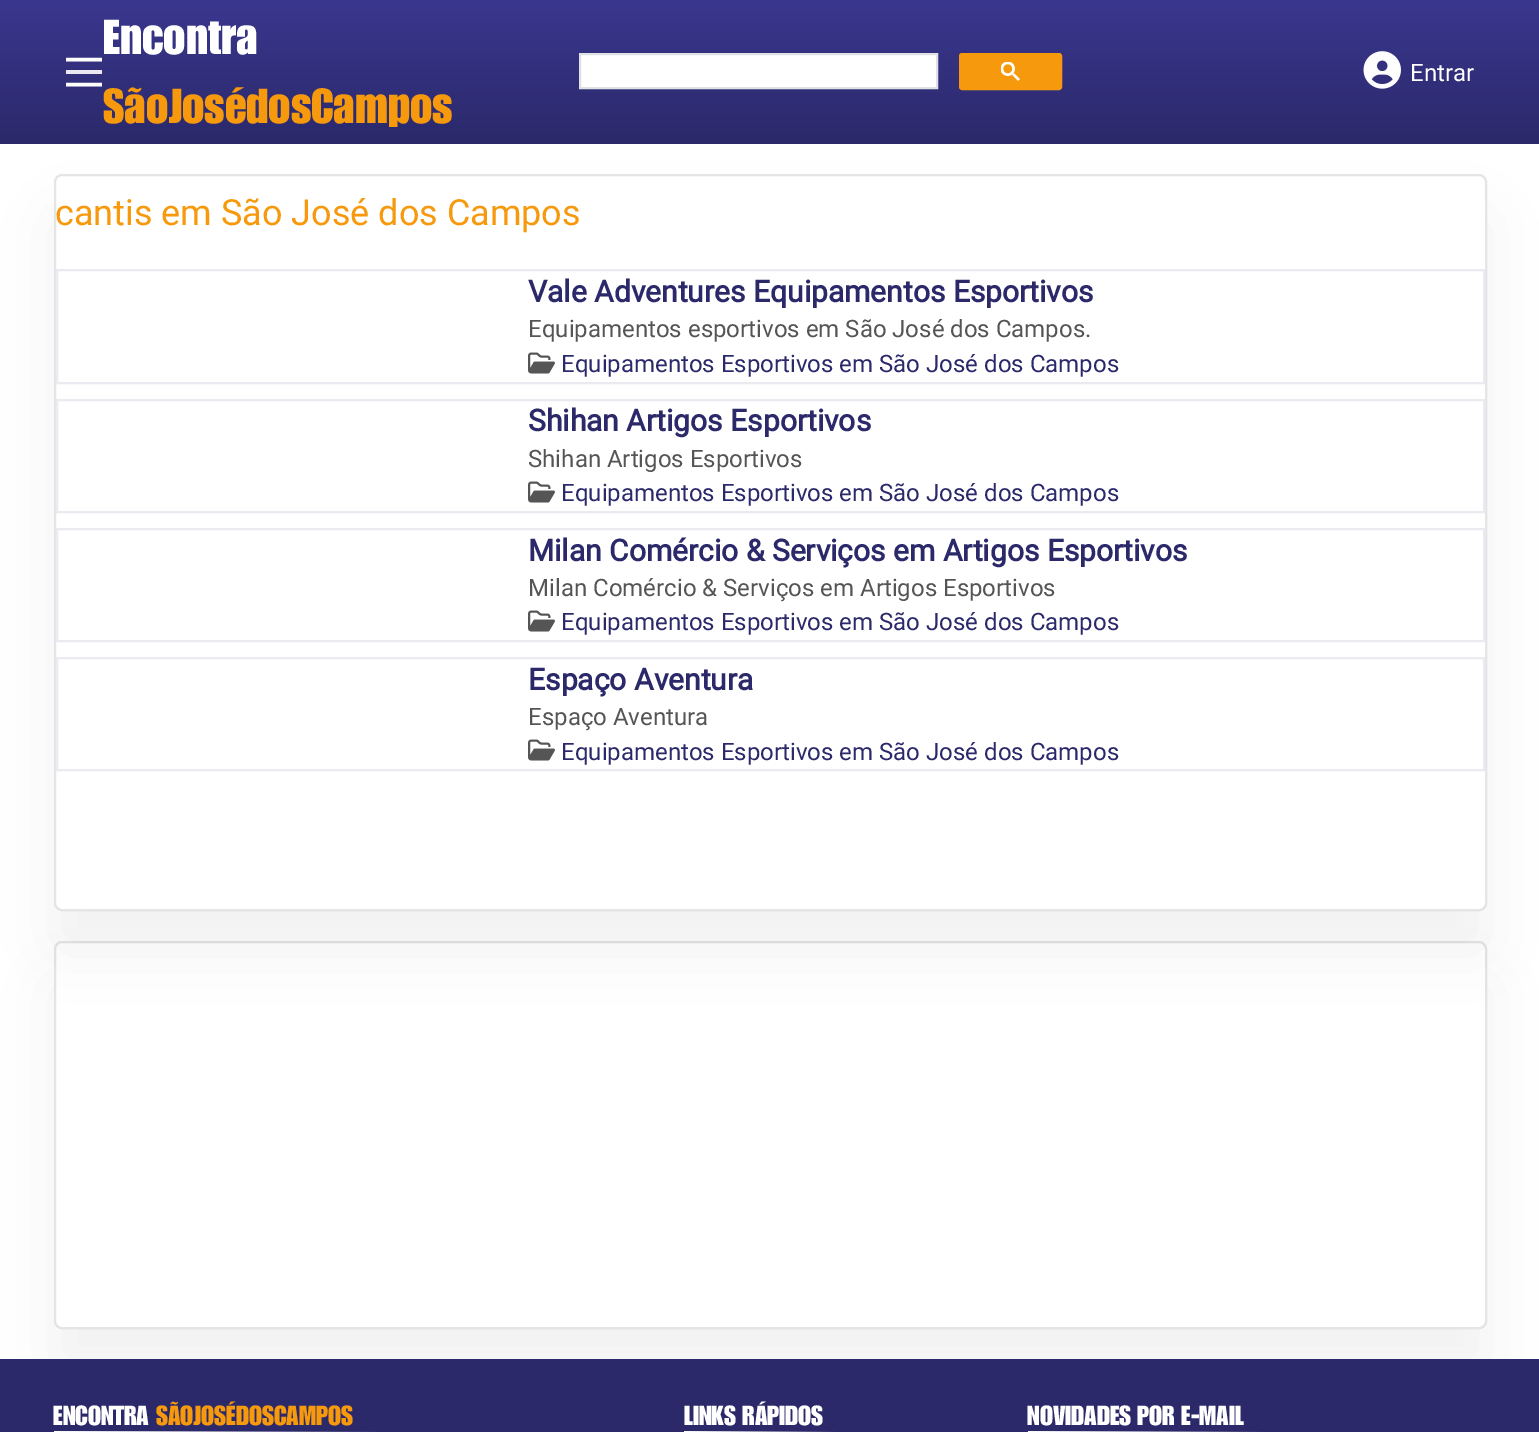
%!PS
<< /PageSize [1539 1432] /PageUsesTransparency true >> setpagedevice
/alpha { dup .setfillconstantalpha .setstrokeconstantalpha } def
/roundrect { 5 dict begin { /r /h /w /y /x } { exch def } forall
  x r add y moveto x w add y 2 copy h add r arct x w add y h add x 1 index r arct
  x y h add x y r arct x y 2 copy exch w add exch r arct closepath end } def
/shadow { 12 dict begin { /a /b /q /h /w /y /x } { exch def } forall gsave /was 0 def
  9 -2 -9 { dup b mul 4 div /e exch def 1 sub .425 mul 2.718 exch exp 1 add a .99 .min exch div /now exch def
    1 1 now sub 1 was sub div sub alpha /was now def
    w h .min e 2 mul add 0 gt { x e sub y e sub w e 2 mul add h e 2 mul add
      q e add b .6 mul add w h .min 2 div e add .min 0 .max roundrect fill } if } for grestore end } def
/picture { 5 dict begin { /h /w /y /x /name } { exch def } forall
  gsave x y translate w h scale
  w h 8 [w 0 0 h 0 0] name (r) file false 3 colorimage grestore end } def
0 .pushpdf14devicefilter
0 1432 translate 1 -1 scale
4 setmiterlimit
1 setgray
0 0 1539 1432 rectfill
gsave
newpath 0 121 moveto 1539 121 lineto 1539 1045 lineto 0 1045 lineto closepath 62 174 moveto 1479 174 lineto 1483.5 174 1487 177.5 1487 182 curveto 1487 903 lineto 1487 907.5 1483.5 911 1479 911 curveto 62 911 lineto 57.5 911 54 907.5 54 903 curveto 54 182 lineto 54 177.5 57.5 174 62 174 curveto closepath eoclip newpath
0 setgray
54 215 1433 736 8 31 0.05 shadow
grestore
gsave newpath 0 0 moveto 1539 0 lineto 1539 144 lineto 0 144 lineto closepath clip newpath
<< /ShadingType 2 /ColorSpace /DeviceRGB /Coords [770 0 770 144] /Extend [true true] /Function << /FunctionType 2 /Domain [0 1] /C0 [0.227 0.216 0.561] /C1 [0.169 0.161 0.416] /N 1 >> >> shfill grestore
0.996 setgray
3.6 setlinewidth
newpath 66 59.5 moveto 102 59.5 lineto stroke
0.918 0.914 0.945 setrgbcolor
66 70 36 4 rectfill
0.996 setgray
newpath 66 84.5 moveto 102 84.5 lineto stroke
/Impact-Medium [48 0 0 -48 0 0] selectfont
1 setgray
103 54 moveto (Encontra) show
0.965 0.6 0.051 setrgbcolor
103 123 moveto (SãoJosédosCampos) show
1 setgray
newpath 580 54 moveto 937 54 lineto 937 88 lineto 580 88 lineto closepath gsave fill grestore
0.875 0.882 0.898 setrgbcolor
2 setlinewidth
stroke
0.965 0.6 0.051 setrgbcolor
960 54 101 35 2 roundrect gsave fill grestore
stroke
(img1.rgb) 1001 62 19 19 picture
(img2.rgb) 1363 51 38 38 picture
/Roboto-Regular [24 0 0 -24 0 0] selectfont
1 setgray
1410 81 moveto (Entrar) show
0.1 alpha
0 setgray
55 175 1431 735 7 roundrect stroke
/Roboto-Regular [36 0 0 -36 0 0] selectfont
1 alpha
0.965 0.6 0.051 setrgbcolor
55 225 moveto (cantis em São José dos Campos) show
0.918 0.918 0.941 setrgbcolor
57 270 1427 113 rectstroke
/Roboto-Bold [30 0 0 -30 0 0] selectfont
0.169 0.161 0.416 setrgbcolor
528 302 moveto (Vale Adventures Equipamentos Esportivos) show
/Roboto-Regular [24 0 0 -24 0 0] selectfont
0.333 setgray
528 337 moveto (Equipamentos esportivos em São José dos Campos.) show
(img3.rgb) 528 352 27 22 picture
0.169 0.161 0.416 setrgbcolor
561 372 moveto (Equipamentos Esportivos em São José dos Campos) show
0.918 0.918 0.941 setrgbcolor
57 400 1427 112 rectstroke
/Roboto-Bold [30 0 0 -30 0 0] selectfont
0.169 0.161 0.416 setrgbcolor
528 431 moveto (Shihan Artigos Esportivos) show
/Roboto-Regular [24 0 0 -24 0 0] selectfont
0.333 setgray
528 467 moveto (Shihan Artigos Esportivos) show
(img3.rgb) 528 481 27 22 picture
0.169 0.161 0.416 setrgbcolor
561 501 moveto (Equipamentos Esportivos em São José dos Campos) show
0.918 0.918 0.941 setrgbcolor
57 529 1427 112 rectstroke
/Roboto-Bold [30 0 0 -30 0 0] selectfont
0.169 0.161 0.416 setrgbcolor
528 561 moveto (Milan Comércio & Serviços em Artigos Esportivos) show
/Roboto-Regular [24 0 0 -24 0 0] selectfont
0.333 setgray
528 596 moveto (Milan Comércio & Serviços em Artigos Esportivos) show
(img3.rgb) 528 610 27 22 picture
0.169 0.161 0.416 setrgbcolor
561 630 moveto (Equipamentos Esportivos em São José dos Campos) show
0.918 0.918 0.941 setrgbcolor
57 658 1427 112 rectstroke
/Roboto-Bold [30 0 0 -30 0 0] selectfont
0.169 0.161 0.416 setrgbcolor
528 690 moveto (Espaço Aventura) show
/Roboto-Regular [24 0 0 -24 0 0] selectfont
0.333 setgray
528 725 moveto (Espaço Aventura) show
(img3.rgb) 528 739 27 22 picture
0.169 0.161 0.416 setrgbcolor
561 760 moveto (Equipamentos Esportivos em São José dos Campos) show
gsave
newpath 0 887 moveto 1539 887 lineto 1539 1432 lineto 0 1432 lineto closepath 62 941 moveto 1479 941 lineto 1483.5 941 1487 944.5 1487 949 curveto 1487 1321 lineto 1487 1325.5 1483.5 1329 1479 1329 curveto 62 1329 lineto 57.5 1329 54 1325.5 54 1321 curveto 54 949 lineto 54 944.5 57.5 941 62 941 curveto closepath eoclip newpath
0 setgray
54 981 1433 389 8 31 0.05 shadow
grestore
0.1 alpha
0 setgray
55 942 1431 386 7 roundrect stroke
1 alpha
0.169 0.161 0.416 setrgbcolor
0 1359 1539 73 rectfill
/Impact-Medium [27 0 0 -27 0 0] selectfont
1 setgray
53 1425 moveto (ENCONTRA) show
0.965 0.6 0.051 setrgbcolor
156 1425 moveto (SÃOJOSÉDOSCAMPOS) show
gsave newpath 54 1431 moveto 383 1431 lineto 383 1432 lineto 54 1432 lineto closepath clip newpath
<< /ShadingType 2 /ColorSpace /DeviceRGB /Coords [54 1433 383 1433] /Extend [true true] /Function << /FunctionType 2 /Domain [0 1] /C0 [1 1 1] /C1 [0.169 0.161 0.416] /N 1 >> >> shfill grestore
1 setgray
684 1425 moveto (LINKS RÁPIDOS) show
gsave newpath 684 1431 moveto 837 1431 lineto 837 1432 lineto 684 1432 lineto closepath clip newpath
<< /ShadingType 2 /ColorSpace /DeviceRGB /Coords [684 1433 837 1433] /Extend [true true] /Function << /FunctionType 2 /Domain [0 1] /C0 [1 1 1] /C1 [0.169 0.161 0.416] /N 1 >> >> shfill grestore
1027 1425 moveto (NOVIDADES POR E-MAIL) show
gsave newpath 1028 1431 moveto 1266 1431 lineto 1266 1432 lineto 1028 1432 lineto closepath clip newpath
<< /ShadingType 2 /ColorSpace /DeviceRGB /Coords [1028 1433 1266 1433] /Extend [true true] /Function << /FunctionType 2 /Domain [0 1] /C0 [1 1 1] /C1 [0.169 0.161 0.416] /N 1 >> >> shfill grestore
.poppdf14devicefilter showpage
